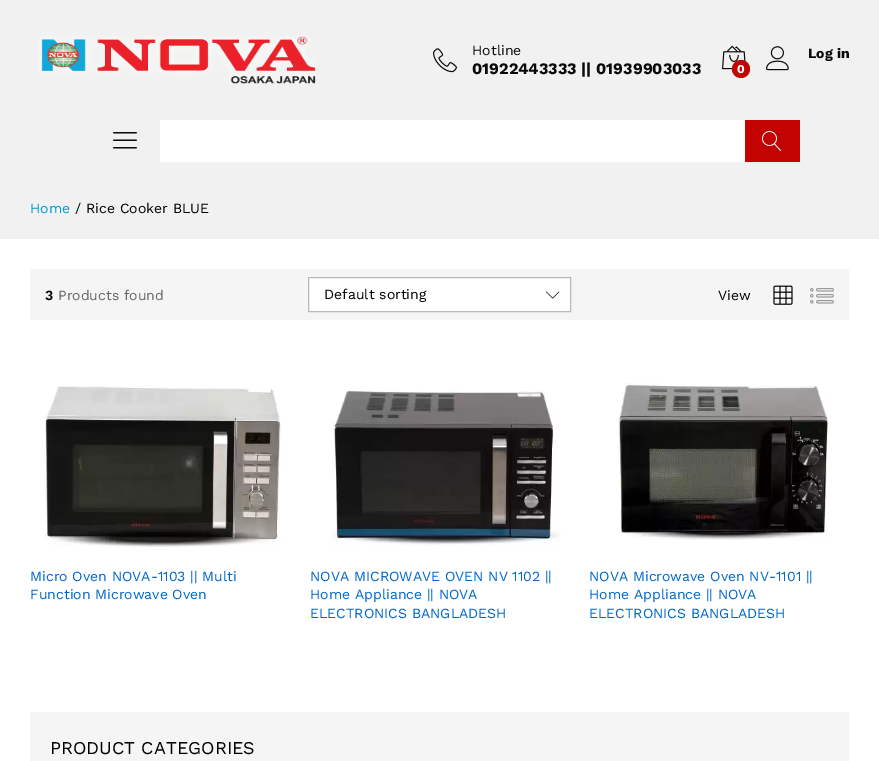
%!PS
<< /PageSize [879 761] >> setpagedevice
/picture { 5 dict begin { /h /w /y /x /name } { exch def } forall
  gsave x y translate w h scale
  w h 8 [w 0 0 h 0 0] name (r) file false 3 colorimage grestore end } def
0 761 translate 1 -1 scale
4 setmiterlimit
1 setgray
0 0 879 761 rectfill
0.945 setgray
0 0 879 239 rectfill
(img1.rgb) 38 36 278 48 picture
(img2.rgb) 433 48 24 25 picture
/WorkSans-Regular [14 0 0 -14 0 0] selectfont
0.039 setgray
472 55 moveto (Hotline) show
/WorkSans-Bold [16 0 0 -16 0 0] selectfont
472 74 moveto (01922443333 || 01939903033) show
(img3.rgb) 766 46 23 25 picture
/WorkSans-Bold [14 0 0 -14 0 0] selectfont
808 58 moveto (Log in) show
(img4.rgb) 722 45 24 25 picture
0.765 0.008 0.008 setrgbcolor
newpath 741 69 9 0 360 arc closepath fill
/WorkSans-Bold [12 0 0 -12 0 0] selectfont
1 setgray
737 73 moveto (0) show
(img5.rgb) 113 132 24 17 picture
160 120 585 42 rectfill
0.765 0.008 0.008 setrgbcolor
745 120 55 42 rectfill
(img6.rgb) 762 131 19 20 picture
/WorkSans-Regular [14 0 0 -14 0 0] selectfont
0 0.6 0.8 setrgbcolor
30 213 moveto (Home) show
0 setgray
75 213 moveto (/ Rice Cooker BLUE) show
0.961 setgray
30 269 819 51 rectfill
/WorkSans-SemiBold [14 0 0 -14 0 0] selectfont
0 setgray
45 300 moveto (3) show
/WorkSans-Regular [14 0 0 -14 0 0] selectfont
0.4 setgray
58 300 moveto (Products found) show
1 setgray
newpath 308.5 277.5 moveto 570.5 277.5 lineto 570.5 311.5 lineto 308.5 311.5 lineto closepath gsave fill grestore
0.722 setgray
stroke
0 setgray
324 299 moveto (Default sorting) show
(img7.rgb) 546 291 14 8 picture
718 300 moveto (View) show
(img8.rgb) 773 285 20 20 picture
(img9.rgb) 810 288 24 16 picture
(img10.rgb) 45 386 237 161 picture
0 0.4 0.8 setrgbcolor
30 581 moveto (Micro Oven NOVA-1103 || Multi) show
30 599 moveto (Function Microwave Oven) show
(img11.rgb) 331 391 230 155 picture
310 581 moveto (NOVA MICROWAVE OVEN NV 1102 ||) show
310 599 moveto (Home Appliance || NOVA) show
310 618 moveto (ELECTRONICS BANGLADESH) show
(img12.rgb) 618 383 210 157 picture
589 581 moveto (NOVA Microwave Oven NV-1101 ||) show
589 599 moveto (Home Appliance || NOVA) show
589 618 moveto (ELECTRONICS BANGLADESH) show
0.961 setgray
30 712 819 49 rectfill
/WorkSans-Regular [18 0 0 -18 0 0] selectfont
0 setgray
50 754 moveto (PRODUCT CATEGORIES) show
showpage
